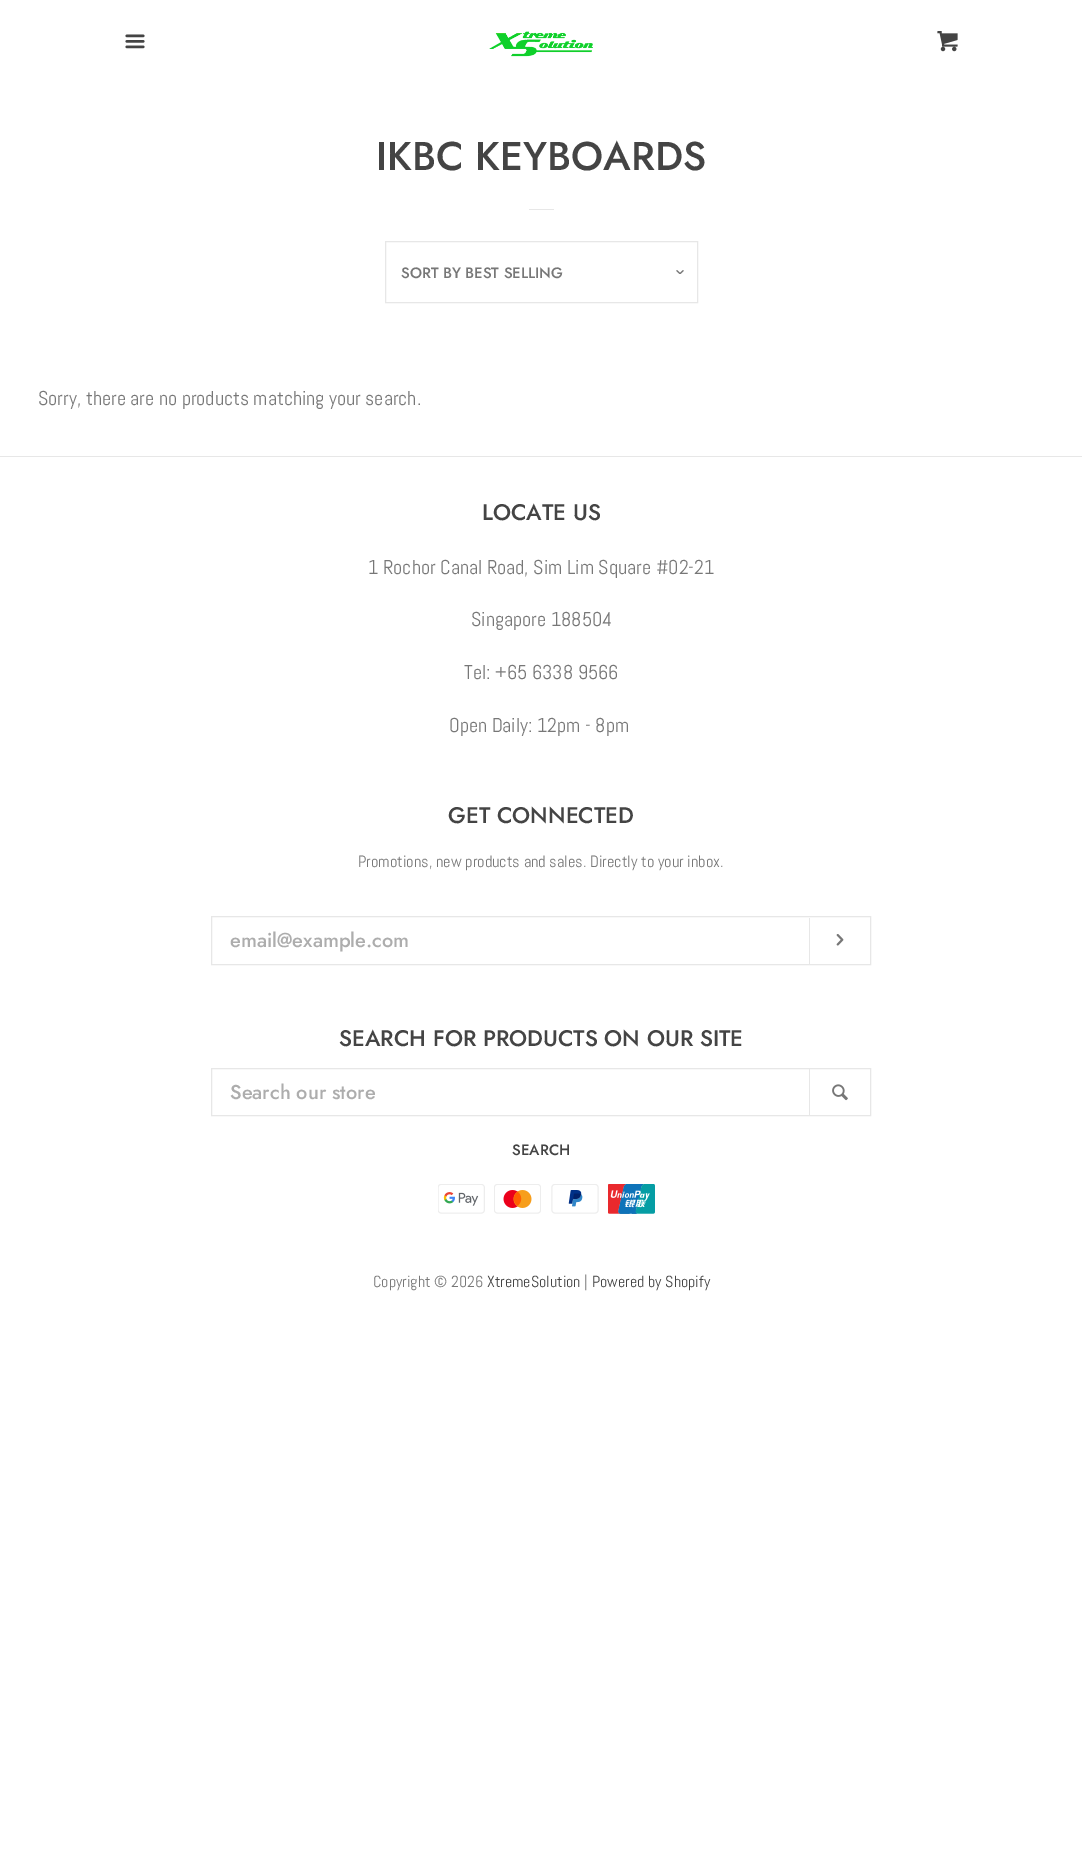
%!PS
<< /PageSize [1082 1860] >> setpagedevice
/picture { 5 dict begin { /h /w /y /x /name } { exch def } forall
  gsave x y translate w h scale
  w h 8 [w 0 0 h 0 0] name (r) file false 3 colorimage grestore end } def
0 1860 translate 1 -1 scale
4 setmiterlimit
1 setgray
0 0 1082 1860 rectfill
(img1.rgb) 125 34 20 15 picture
(img2.rgb) 489 31 104 26 picture
(img3.rgb) 937 31 21 21 picture
/Jost-Medium [40 0 0 -40 0 0] selectfont
0.267 setgray
376 170 moveto (IKBC KEYBOARDS) show
0.906 setgray
529 209 25 1 rectfill
(img4.rgb) 676 270 8 4 picture
385.5 241.5 312 61 rectstroke
/Jost-Medium [15 0 0 -15 0 0] selectfont
0.467 setgray
401 278 moveto (SORT BY BEST SELLING) show
/Abel-Regular [20 0 0 -20 0 0] selectfont
38 405 moveto (Sorry, there are no products matching your search.) show
0.906 setgray
0 456 1082 1 rectfill
/Jost-Medium [22.5 0 0 -22.5 0 0] selectfont
0.267 setgray
482 520 moveto (LOCATE US) show
/Abel-Regular [20 0 0 -20 0 0] selectfont
0.467 setgray
368 574 moveto (1 Rochor Canal Road, Sim Lim Square #02-21) show
471 626 moveto (Singapore 188504) show
464 679 moveto (Tel: +65 6338 9566) show
449 732 moveto (Open Daily: 12pm - 8pm) show
/Jost-Medium [22.5 0 0 -22.5 0 0] selectfont
0.267 setgray
448 823 moveto (GET CONNECTED) show
/Abel-Regular [16.25 0 0 -16.25 0 0] selectfont
0.467 setgray
358 867 moveto (Promotions, new products and sales. Directly to your inbox.) show
0.906 setgray
211.5 916.5 659 48 rectstroke
809 918 1 46 rectfill
/Jost-Medium [20 0 0 -20 0 0] selectfont
0.678 setgray
230 947 moveto (email@example.com) show
(img5.rgb) 836 934 8 12 picture
/Jost-Medium [22.5 0 0 -22.5 0 0] selectfont
0.267 setgray
339 1046 moveto (SEARCH FOR PRODUCTS ON OUR SITE) show
0.906 setgray
211.5 1068.5 659 47 rectstroke
809 1069 1 46 rectfill
/Jost-Medium [20 0 0 -20 0 0] selectfont
0.678 setgray
230 1099 moveto (Search our store) show
(img6.rgb) 832 1084 16 17 picture
/Jost-Medium [15 0 0 -15 0 0] selectfont
0.267 setgray
512 1155 moveto (SEARCH) show
(img7.rgb) 438 1184 47 30 picture
(img8.rgb) 494 1184 47 30 picture
(img9.rgb) 551 1184 48 30 picture
(img10.rgb) 608 1184 47 30 picture
/Abel-Regular [16 0 0 -16 0 0] selectfont
0.467 setgray
373 1287 moveto (Copyright © 2026) show
0.267 setgray
487 1287 moveto (XtremeSolution) show
0.467 setgray
584 1287 moveto (|) show
0.267 setgray
592 1287 moveto (Powered by Shopify) show
showpage
